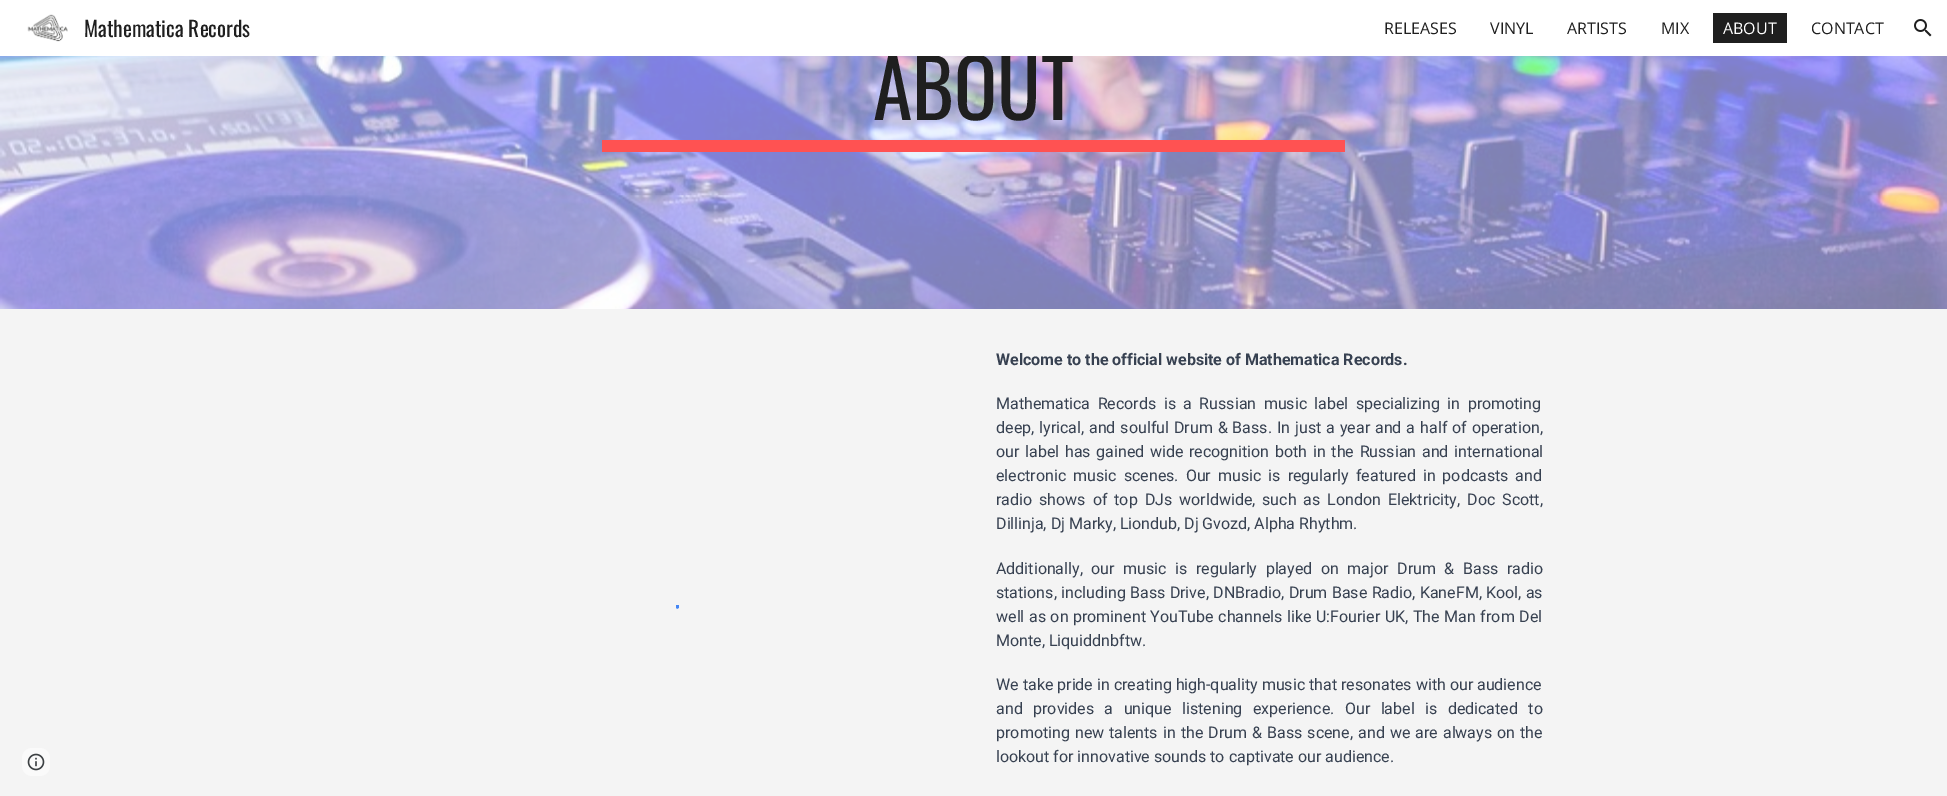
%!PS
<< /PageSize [1947 796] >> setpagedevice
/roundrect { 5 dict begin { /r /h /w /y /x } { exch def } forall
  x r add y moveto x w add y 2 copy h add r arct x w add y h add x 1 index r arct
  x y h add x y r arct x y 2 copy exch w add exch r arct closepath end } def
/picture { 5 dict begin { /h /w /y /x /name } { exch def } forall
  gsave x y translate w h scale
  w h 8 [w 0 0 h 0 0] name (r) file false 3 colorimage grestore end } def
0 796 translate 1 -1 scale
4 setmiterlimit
1 setgray
0 0 1947 796 rectfill
(img1.rgb) 27 14 41 28 picture
/Oswald-Regular [21.25 0 0 -21.25 0 0] selectfont
0.122 setgray
84 37 moveto (Mathematica Records) show
/OpenSans-Regular [16 0 0 -16 0 0] selectfont
1384 34 moveto (RELEASES) show
1490 34 moveto (VINYL) show
1567 34 moveto (ARTISTS) show
1661 34 moveto (MIX) show
1713 13 74 30 rectfill
1 setgray
1723 34 moveto (ABOUT) show
0.122 setgray
1811 34 moveto (CONTACT) show
(img2.rgb) 1914 19 18 18 picture
(img4.rgb) 0 56 1947 253 picture
/Oswald-Regular [80 0 0 -80 0 0] selectfont
873 120 moveto (ABOUT) show
1 setgray
888 54 185 2 rectfill
0.957 setgray
0 309 1947 487 rectfill
0.98 setgray
22 748 28 28 10 roundrect fill
(img3.rgb) 27 753 18 18 picture
1 0.322 0.322 setrgbcolor
602 140 743 12 rectfill
gsave
664 605 14 28 rectclip
0.267 0.525 0.957 setrgbcolor
3 setlinewidth
newpath 676.5 607 moveto 693 605.5 695 630 678.5 631.5 curveto stroke
grestore
gsave
676 605 3 28 rectclip
0.267 0.525 0.957 setrgbcolor
3 setlinewidth
newpath 669 628 moveto 666 625 665 620.5 665.5 616.5 curveto 666.5 613.5 668 610.5 671 608.5 curveto 683 600 696 617.5 686 628 curveto stroke
grestore
gsave
678 605 14 28 rectclip
0.267 0.525 0.957 setrgbcolor
3 setlinewidth
newpath 676.5 631.5 moveto 660 630 662 605.5 678.5 607 curveto stroke
grestore
gsave
664 605 14 28 rectclip
0.267 0.525 0.957 setrgbcolor
3 setlinewidth
newpath 676.5 607 moveto 693 605.5 695 630 678.5 631.5 curveto 676.5 607 moveto 693 605.5 695 630 678.5 631.5 curveto 676.5 607 moveto 693 605.5 695 630 678.5 631.5 curveto stroke
grestore
/Roboto-Bold [16 0 0 -16 0 0] selectfont
0.216 0.255 0.318 setrgbcolor
996 365 moveto (Welcome to the official website of Mathematica Records.) show
/Roboto-Regular [16 0 0 -16 0 0] selectfont
996 409 moveto 3.5 0 32 (Mathematica Records is a Russian music label specializing in promoting) widthshow
996 433 moveto 1 0 32 (deep, lyrical, and soulful Drum & Bass. In just a year and a half of operation,) widthshow
996 457 moveto 1.75 0 32 (our label has gained wide recognition both in the Russian and international) widthshow
996 481 moveto 3.1 0 32 (electronic music scenes. Our music is regularly featured in podcasts and) widthshow
996 505 moveto 3 0 32 (radio shows of top DJs worldwide, such as London Elektricity, Doc Scott,) widthshow
996 529 moveto (Dillinja, Dj Marky, Liondub, Dj Gvozd, Alpha Rhythm.) show
996 574 moveto 4.6 0 32 (Additionally, our music is regularly played on major Drum & Bass radio) widthshow
996 598 moveto 0.4 0 32 (stations, including Bass Drive, DNBradio, Drum Base Radio, KaneFM, Kool, as) widthshow
996 622 moveto 0.6 0 32 (well as on prominent YouTube channels like U:Fourier UK, The Man from Del) widthshow
996 646 moveto (Monte, Liquiddnbftw.) show
996 690 moveto (We take pride in creating high-quality music that resonates with our audience) show
996 714 moveto 6.5 0 32 (and provides a unique listening experience. Our label is dedicated to) widthshow
996 738 moveto 1.1 0 32 (promoting new talents in the Drum & Bass scene, and we are always on the) widthshow
996 762 moveto (lookout for innovative sounds to captivate our audience.) show
showpage
